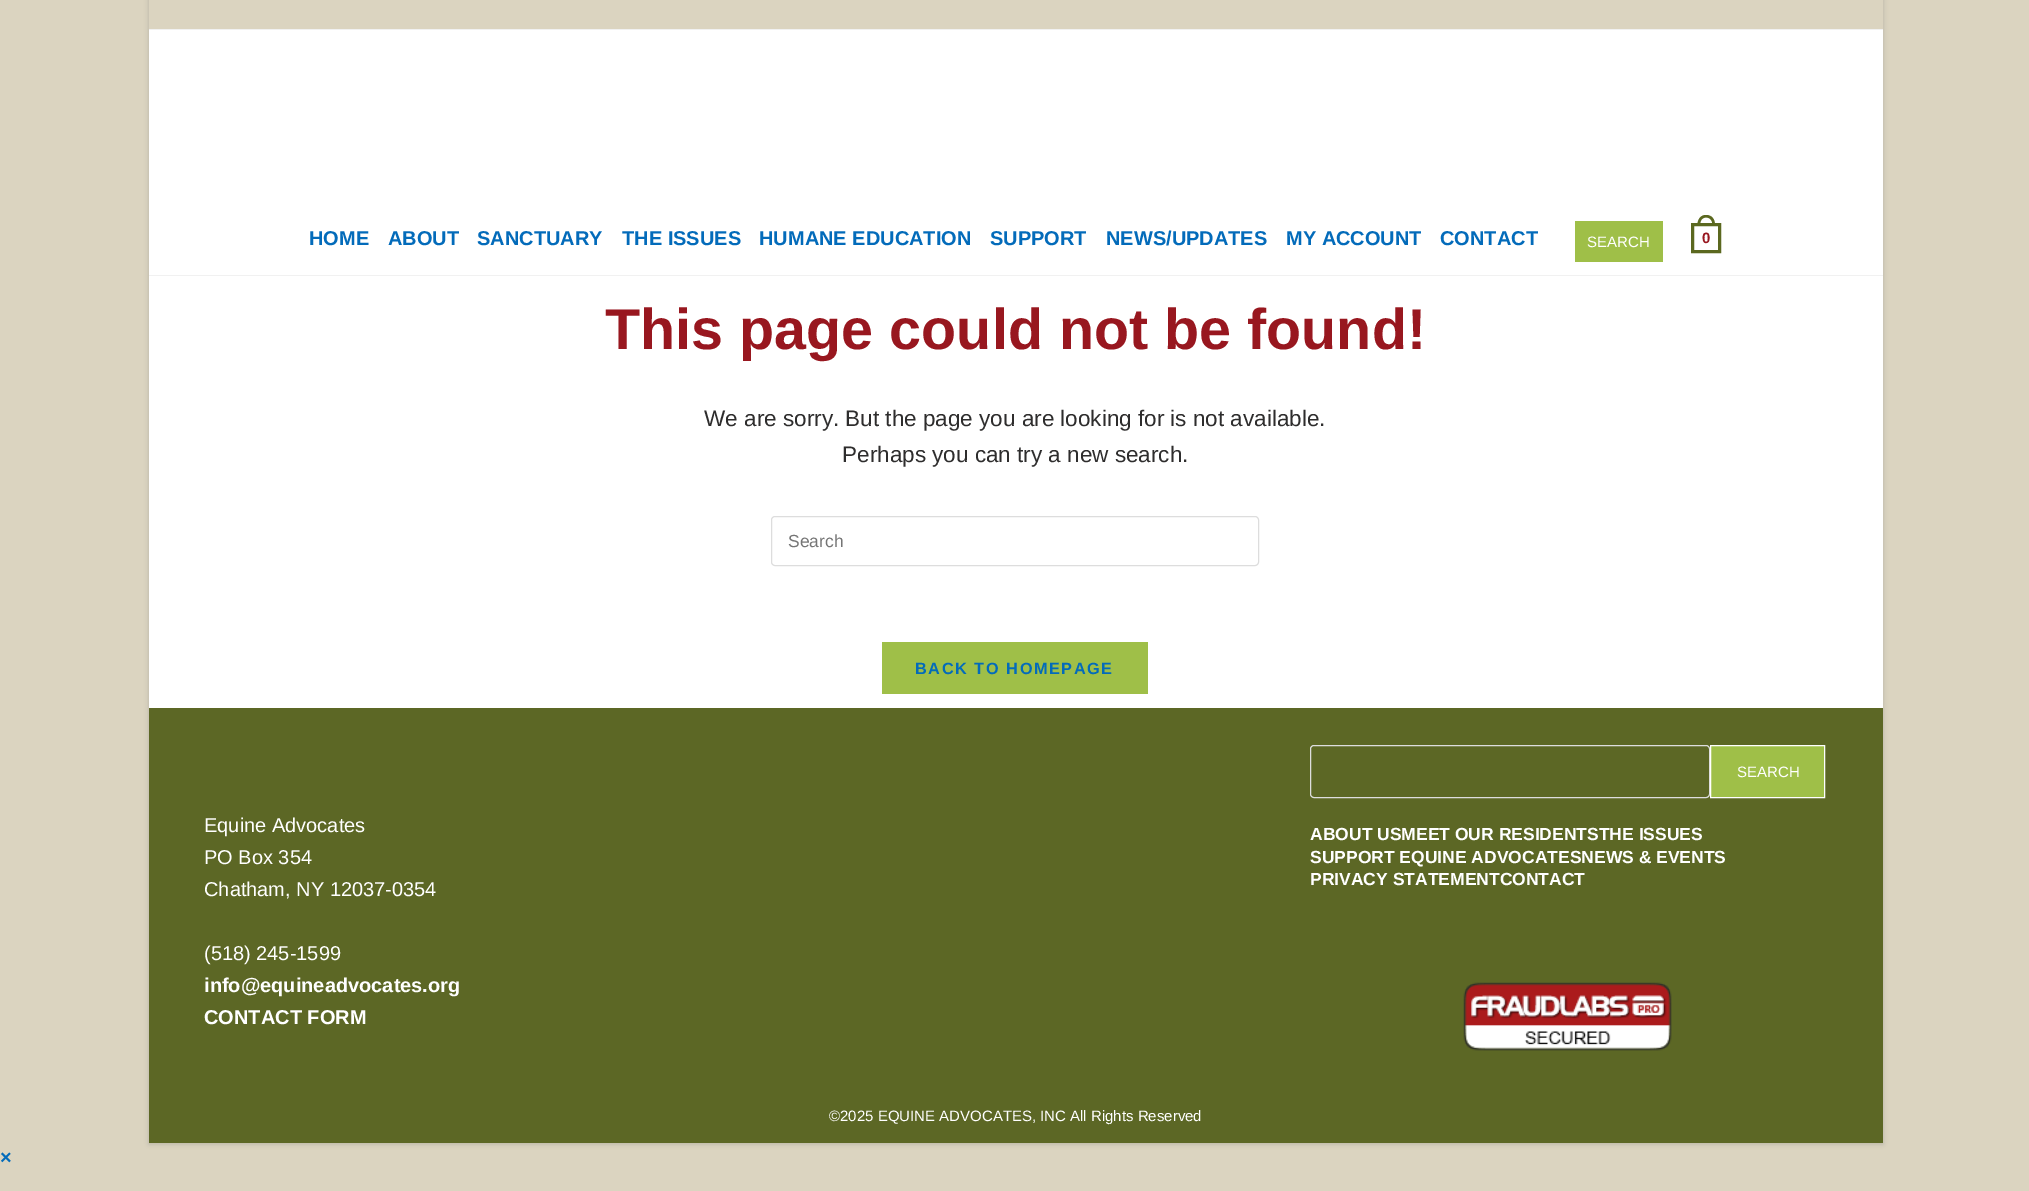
%!PS
<< /PageSize [2029 1191] /PageUsesTransparency true >> setpagedevice
/alpha { dup .setfillconstantalpha .setstrokeconstantalpha } def
/roundrect { 5 dict begin { /r /h /w /y /x } { exch def } forall
  x r add y moveto x w add y 2 copy h add r arct x w add y h add x 1 index r arct
  x y h add x y r arct x y 2 copy exch w add exch r arct closepath end } def
/shadow { 12 dict begin { /a /b /q /h /w /y /x } { exch def } forall gsave /was 0 def
  9 -2 -9 { dup b mul 4 div /e exch def 1 sub .425 mul 2.718 exch exp 1 add a .99 .min exch div /now exch def
    1 1 now sub 1 was sub div sub alpha /was now def
    w h .min e 2 mul add 0 gt { x e sub y e sub w e 2 mul add h e 2 mul add
      q e add b .6 mul add w h .min 2 div e add .min 0 .max roundrect fill } if } for grestore end } def
/picture { 5 dict begin { /h /w /y /x /name } { exch def } forall
  gsave x y translate w h scale
  w h 8 [w 0 0 h 0 0] name (r) file false 3 colorimage grestore end } def
0 .pushpdf14devicefilter
0 1191 translate 1 -1 scale
4 setmiterlimit
0.859 0.831 0.753 setrgbcolor
0 0 2029 1191 rectfill
0 setgray
149 -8 1734 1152 0 2.5 0.15 shadow
1 setgray
149 30 1734 678 rectfill
0.859 0.831 0.753 setrgbcolor
149 0 1734 29 rectfill
0.945 setgray
149 29 1734 1 rectfill
149 275 1734 1 rectfill
/LiberationSans-Bold [20 0 0 -20 0 0] selectfont
0.012 0.42 0.729 setrgbcolor
309 245 moveto (HOME) show
388 245 moveto (ABOUT) show
477 245 moveto (SANCTUARY) show
622 245 moveto (THE ISSUES) show
759 245 moveto (HUMANE EDUCATION) show
990 245 moveto (SUPPORT) show
1106 245 moveto (NEWS/UPDATES) show
1286 245 moveto (MY ACCOUNT) show
1440 245 moveto (CONTACT) show
0.624 0.749 0.282 setrgbcolor
1575 221 88 41 rectfill
/LiberationSans-Regular [15 0 0 -15 0 0] selectfont
1 setgray
1587 247 moveto (SEARCH) show
0.357 0.408 0.122 setrgbcolor
3 setlinewidth
1692.5 224.5 27 27 rectstroke
newpath 1706 215 moveto 1712 215 1715 219.5 1715 225 curveto 1697.5 225 lineto 1697.5 219.5 1700.5 215 1706 215 curveto closepath 1706 217.5 moveto 1710.5 217.5 1712.5 221 1712.5 225 curveto 1700 225 lineto 1700 221 1702 217.5 1706 217.5 curveto closepath eofill
/LiberationSans-Bold [15 0 0 -15 0 0] selectfont
0.596 0.09 0.122 setrgbcolor
1702 243 moveto (0) show
/LiberationSans-Bold [57.5 0 0 -57.5 0 0] selectfont
605 349 moveto (This page could not be found!) show
/LiberationSans-Regular [22.5 0 0 -22.5 0 0] selectfont
0.18 0.176 0.176 setrgbcolor
704 426 moveto (We are sorry. But the page you are looking for is not available.) show
842 462 moveto (Perhaps you can try a new search.) show
0.867 setgray
1 setlinewidth
771.5 516.5 487 49 3.5 roundrect stroke
/LiberationSans-Regular [17.5 0 0 -17.5 0 0] selectfont
0.459 setgray
788 547 moveto (Search) show
0.624 0.749 0.282 setrgbcolor
882 642 266 52 rectfill
/LiberationSans-Bold [16.25 0 0 -16.25 0 0] selectfont
0.012 0.42 0.729 setrgbcolor
915 674 moveto 1.6 0 (BACK TO HOMEPAGE) ashow
0.361 0.404 0.145 setrgbcolor
149 708 1734 435 rectfill
/LiberationSans-Regular [20 0 0 -20 0 0] selectfont
1 setgray
204 832 moveto (Equine Advocates) show
204 864 moveto (PO Box 354) show
204 896 moveto (Chatham, NY 12037-0354) show
204 960 moveto (\(518\) 245-1599) show
/LiberationSans-Bold [20 0 0 -20 0 0] selectfont
204 992 moveto (info@equineadvocates.org) show
204 1024 moveto (CONTACT FORM) show
0.867 setgray
1310.5 745.5 399 52 3.5 roundrect stroke
0.624 0.749 0.282 setrgbcolor
newpath 1710.5 745.5 moveto 1824.5 745.5 lineto 1824.5 797.5 lineto 1710.5 797.5 lineto closepath gsave fill grestore
1 setgray
stroke
/LiberationSans-Regular [15 0 0 -15 0 0] selectfont
1737 777 moveto (SEARCH) show
/LiberationSans-Bold [17.5 0 0 -17.5 0 0] selectfont
1310 840 moveto (ABOUT USMEET OUR RESIDENTSTHE ISSUES) show
1310 863 moveto (SUPPORT EQUINE ADVOCATESNEWS & EVENTS) show
1310 885 moveto (PRIVACY STATEMENTCONTACT) show
(img1.rgb) 1463 982 209 69 picture
/LiberationSans-Regular [15 0 0 -15 0 0] selectfont
829 1121 moveto (©2025 EQUINE ADVOCATES, INC All Rights Reserved) show
/LiberationSans-Bold [20 0 0 -20 0 0] selectfont
0.012 0.42 0.729 setrgbcolor
0 1164 moveto (×) show
.poppdf14devicefilter showpage
